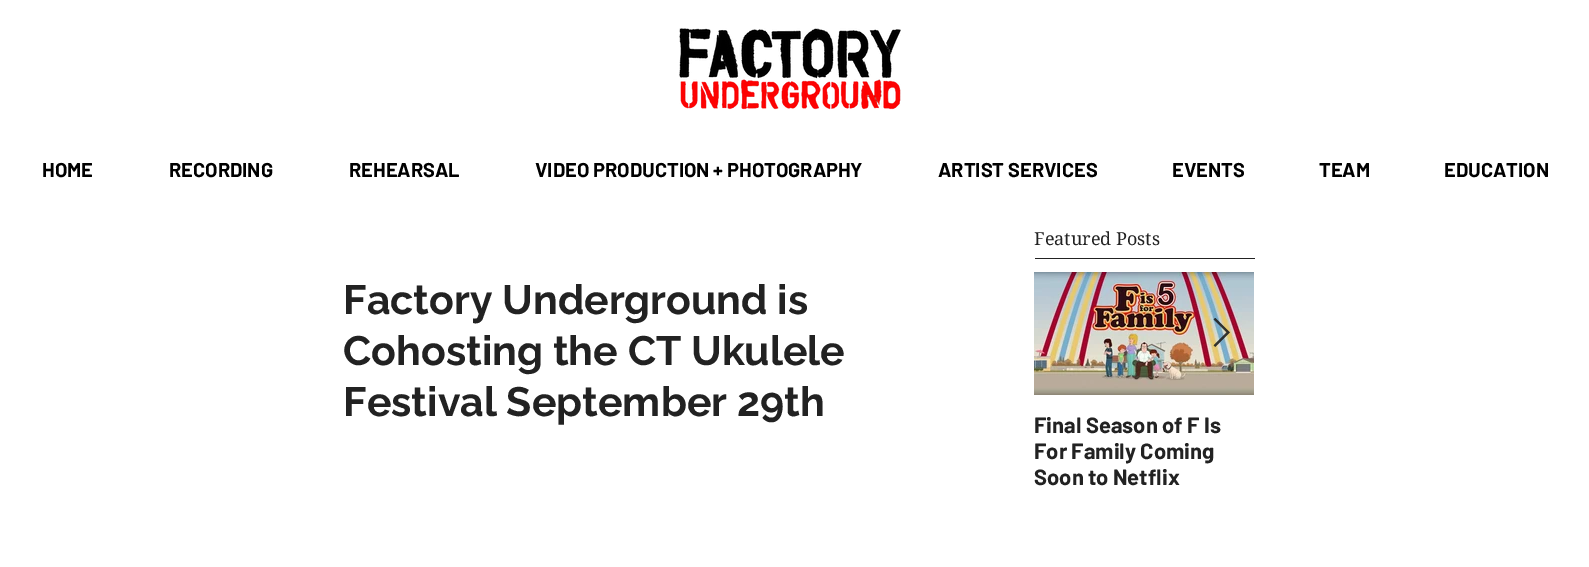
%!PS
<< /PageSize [1589 567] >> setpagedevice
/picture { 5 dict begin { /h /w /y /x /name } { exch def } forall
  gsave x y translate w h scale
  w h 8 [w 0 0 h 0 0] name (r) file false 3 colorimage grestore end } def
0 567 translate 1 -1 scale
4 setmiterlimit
1 setgray
0 0 1589 567 rectfill
(img1.rgb) 679 28 222 82 picture
/Barlow-Bold [20 0 0 -20 0 0] selectfont
0 setgray
42 177 moveto (HOME) show
169 177 moveto (RECORDING) show
349 177 moveto (REHEARSAL) show
535 177 moveto (VIDEO PRODUCTION + PHOTOGRAPHY) show
938 177 moveto (ARTIST SERVICES) show
1172 177 moveto (EVENTS) show
1319 177 moveto (TEAM) show
1444 177 moveto (EDUCATION) show
/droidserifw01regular-Regular [18 0 0 -18 0 0] selectfont
0.133 setgray
1034 245 moveto (Featured Posts) show
1035 258 220 1 rectfill
/Raleway-Bold [41 0 0 -41 0 0] selectfont
343 314 moveto (Factory Underground is) show
343 365 moveto (Cohosting the CT Ukulele) show
343 416 moveto (Festival September 29th) show
(img3.rgb) 1034 272 220 123 picture
(img2.rgb) 1213 318 17 29 picture
/Barlow-Bold [22 0 0 -22 0 0] selectfont
1034 433 moveto (Final Season of F Is) show
1034 459 moveto (For Family Coming) show
1034 485 moveto (Soon to Netflix) show
showpage
